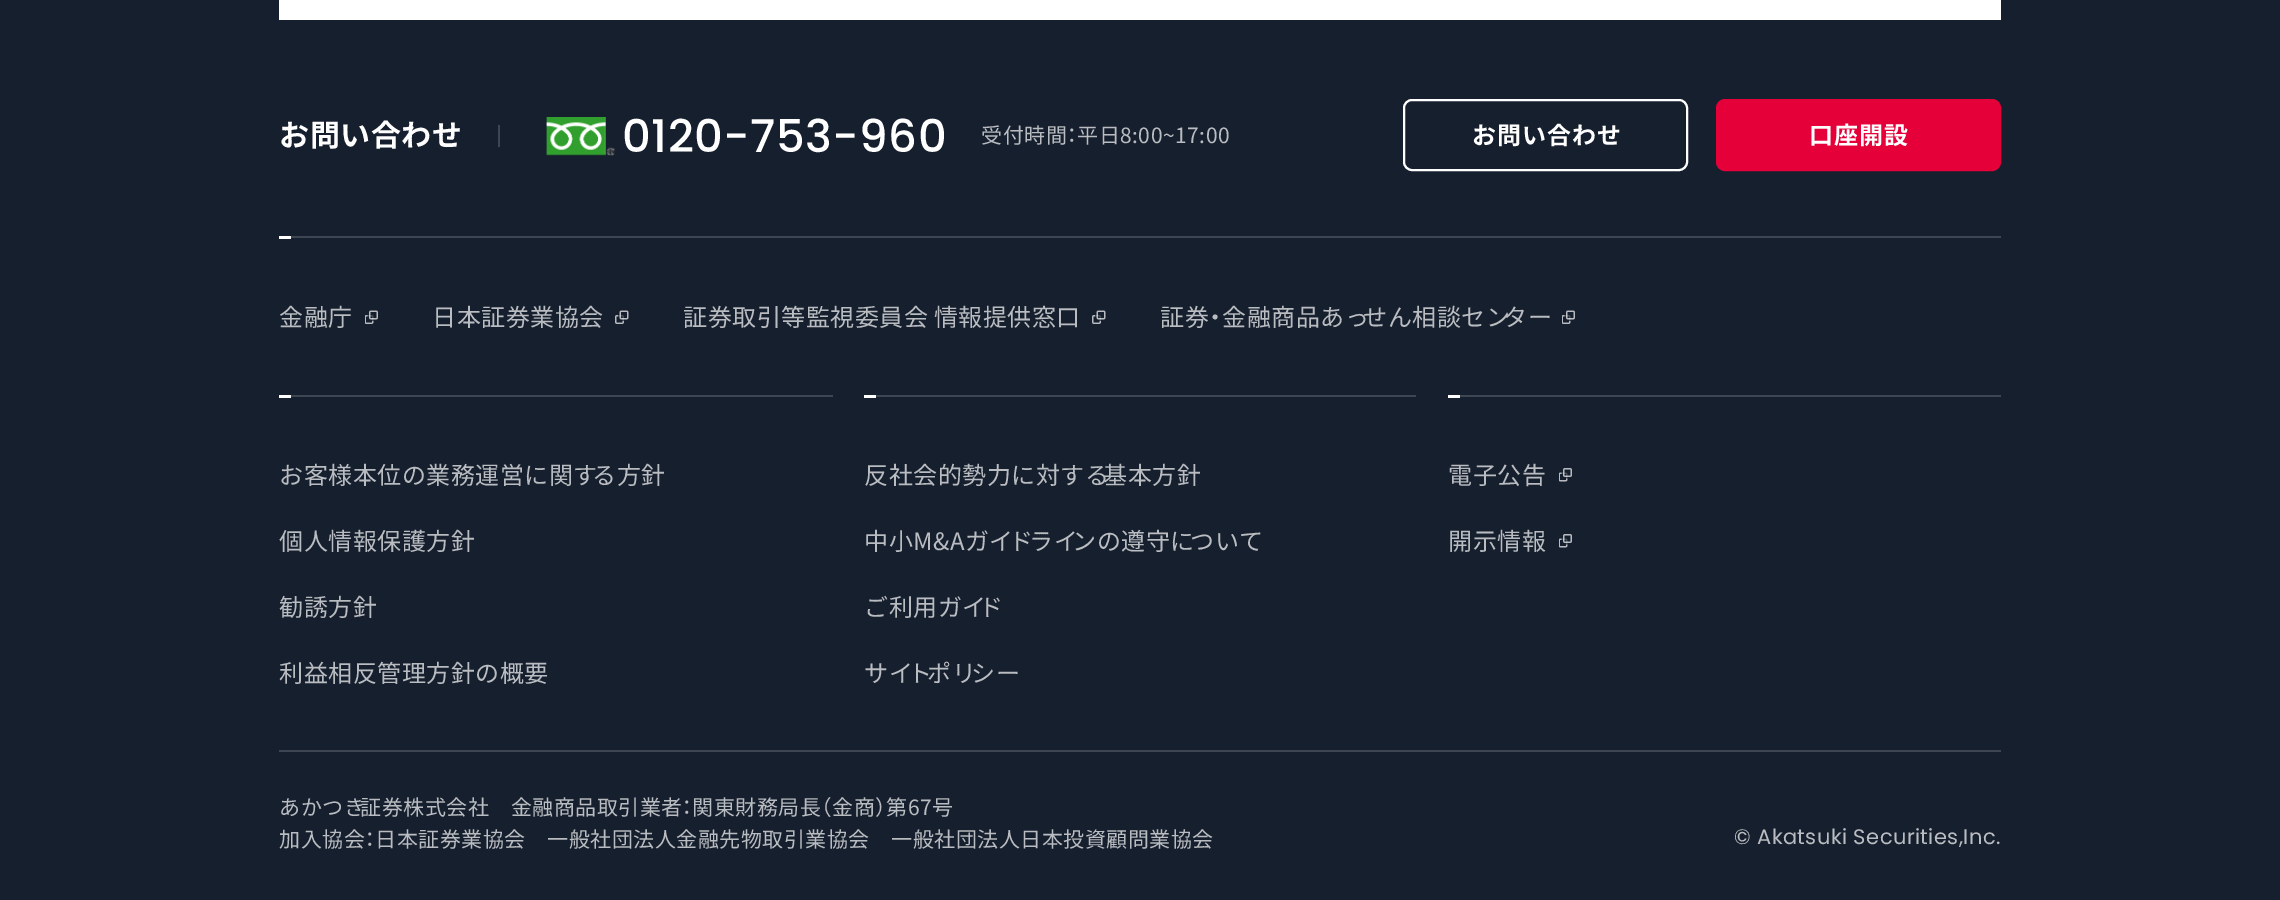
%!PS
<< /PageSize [2280 900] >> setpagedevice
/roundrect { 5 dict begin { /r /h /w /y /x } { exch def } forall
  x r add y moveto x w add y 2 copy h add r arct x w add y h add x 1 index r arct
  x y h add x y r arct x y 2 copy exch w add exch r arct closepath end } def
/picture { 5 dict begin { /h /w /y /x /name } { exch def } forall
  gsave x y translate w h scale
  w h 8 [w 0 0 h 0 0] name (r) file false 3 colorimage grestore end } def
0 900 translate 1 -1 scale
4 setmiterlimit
0.086 0.122 0.18 setrgbcolor
0 0 2280 900 rectfill
1 setgray
279 0 1722 20 rectfill
/NotoSansJP-Bold [30 0 0 -30 0 0] selectfont
279 146 moveto 0.5 0 (お問い合わせ) ashow
0.247 0.275 0.325 setrgbcolor
498 125 2 22 rectfill
(img1.rgb) 546 117 69 39 picture
/Poppins-Medium [45 0 0 -45 0 0] selectfont
1 setgray
622 152 moveto 0.5 0 (0120-753-960) ashow
/NotoSansJP-Regular [21 0 0 -21 0 0] selectfont
0.725 0.737 0.753 setrgbcolor
981 143 moveto 0.5 0 (受付時間) ashow
/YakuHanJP-Regular [21 0 0 -21 0 0] selectfont
1067 143 moveto 0.5 0 (：) ashow
/NotoSansJP-Regular [21 0 0 -21 0 0] selectfont
1077 143 moveto 0.5 0 (平日8:00~17:00) ashow
1 setgray
2 setlinewidth
1404 100 283 70 8 roundrect stroke
/NotoSansJP-Bold [24 0 0 -24 0 0] selectfont
1472 144 moveto 1 0 (お問い合わせ) ashow
0.902 0 0.224 setrgbcolor
1717 100 283 70 8 roundrect gsave fill grestore
stroke
1 setgray
1809 144 moveto 1 0 (口座開設) ashow
279 236 12 3 rectfill
0.247 0.275 0.325 setrgbcolor
291 236 1710 2 rectfill
/NotoSansJP-Regular [24 0 0 -24 0 0] selectfont
0.725 0.737 0.753 setrgbcolor
279 326 moveto 0.5 0 (金融庁) ashow
(img2.rgb) 365 310 13 14 picture
432 326 moveto 0.5 0 (日本証券業協会) ashow
(img3.rgb) 615 310 14 14 picture
683 326 moveto 0.5 0 (証券取引等監視委員会 情報提供窓口) ashow
(img3.rgb) 1092 310 14 14 picture
1160 326 moveto 0.5 0 (証券) ashow
/YakuHanJP-Regular [24 0 0 -24 0 0] selectfont
1209 326 moveto 0.5 0 (・) ashow
/NotoSansJP-Regular [24 0 0 -24 0 0] selectfont
1222 326 moveto 0.5 0 (金融商品あっ) ashow
1363 326 moveto 0.5 0 (せん相談セン) ashow
1503 326 moveto 0.5 0 (ター) ashow
(img2.rgb) 1562 310 13 14 picture
1 setgray
279 395 12 3 rectfill
0.247 0.275 0.325 setrgbcolor
291 395 542 2 rectfill
0.725 0.737 0.753 setrgbcolor
279 484 moveto 0.5 0 (お客様本位の業務運営に関す) ashow
592 484 moveto 0.5 0 (る方針) ashow
279 550 moveto 0.5 0 (個人情報保護方針) ashow
279 616 moveto 0.5 0 (勧誘方針) ashow
279 682 moveto 0.5 0 (利益相反管理方針の概要) ashow
1 setgray
864 395 12 3 rectfill
0.247 0.275 0.325 setrgbcolor
876 395 540 2 rectfill
0.725 0.737 0.753 setrgbcolor
864 484 moveto 0.5 0 (反社会的勢力に対する) ashow
1103 484 moveto 0.5 0 (基本方針) ashow
864 550 moveto 0.5 0 (中小M&Aガイ) ashow
1009 550 moveto 0.5 0 (ド) ashow
1029 550 moveto 0.5 0 (ライ) ashow
1072 550 moveto 0.5 0 (ンの遵守に) ashow
1190 550 moveto 0.5 0 (ついて) ashow
864 616 moveto 0.5 0 (ご利用ガイ) ashow
979 616 moveto 0.5 0 (ド) ashow
864 682 moveto 0.5 0 (サイ) ashow
908 682 moveto 0.5 0 (ト) ashow
927 682 moveto 0.5 0 (ポリ) ashow
971 682 moveto 0.5 0 (シー) ashow
1 setgray
1448 395 12 3 rectfill
0.247 0.275 0.325 setrgbcolor
1460 395 541 2 rectfill
0.725 0.737 0.753 setrgbcolor
1448 484 moveto 0.5 0 (電子公告) ashow
(img4.rgb) 1559 468 13 14 picture
1448 550 moveto 0.5 0 (開示情報) ashow
(img4.rgb) 1559 534 13 14 picture
0.247 0.275 0.325 setrgbcolor
279 750 1722 2 rectfill
/NotoSansJP-Regular [21 0 0 -21 0 0] selectfont
0.725 0.737 0.753 setrgbcolor
279 815 moveto 0.5 0 (あかつき) ashow
360 815 moveto 0.5 0 (証券株式会社　金融商品取引業者) ashow
/YakuHanJP-Regular [21 0 0 -21 0 0] selectfont
682 815 moveto 0.5 0 (：) ashow
/NotoSansJP-Regular [21 0 0 -21 0 0] selectfont
692 815 moveto 0.5 0 (関東財務局長) ashow
/YakuHanJP-Regular [21 0 0 -21 0 0] selectfont
821 815 moveto 0.5 0 (（) ashow
/NotoSansJP-Regular [21 0 0 -21 0 0] selectfont
832 815 moveto 0.5 0 (金商) ashow
/YakuHanJP-Regular [21 0 0 -21 0 0] selectfont
875 815 moveto 0.5 0 (）) ashow
/NotoSansJP-Regular [21 0 0 -21 0 0] selectfont
886 815 moveto 0.5 0 (第67号) ashow
279 847 moveto 0.5 0 (加入協会) ashow
/YakuHanJP-Regular [21 0 0 -21 0 0] selectfont
365 847 moveto 0.5 0 (：) ashow
/NotoSansJP-Regular [21 0 0 -21 0 0] selectfont
375 847 moveto 0.5 0 (日本証券業協会　一般社団法人金融先物取引業協会　一般社団法人日本投資顧問業協会) ashow
/Poppins-Regular [21 0 0 -21 0 0] selectfont
1734 844 moveto 0.4 0 (© Akatsuki Securities,Inc.) ashow
showpage
